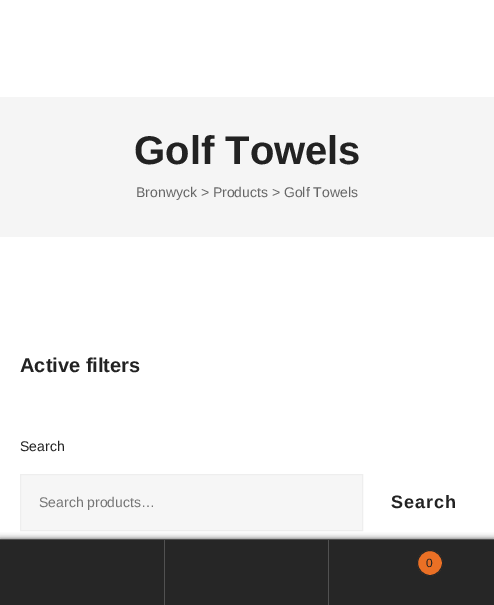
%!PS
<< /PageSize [494 605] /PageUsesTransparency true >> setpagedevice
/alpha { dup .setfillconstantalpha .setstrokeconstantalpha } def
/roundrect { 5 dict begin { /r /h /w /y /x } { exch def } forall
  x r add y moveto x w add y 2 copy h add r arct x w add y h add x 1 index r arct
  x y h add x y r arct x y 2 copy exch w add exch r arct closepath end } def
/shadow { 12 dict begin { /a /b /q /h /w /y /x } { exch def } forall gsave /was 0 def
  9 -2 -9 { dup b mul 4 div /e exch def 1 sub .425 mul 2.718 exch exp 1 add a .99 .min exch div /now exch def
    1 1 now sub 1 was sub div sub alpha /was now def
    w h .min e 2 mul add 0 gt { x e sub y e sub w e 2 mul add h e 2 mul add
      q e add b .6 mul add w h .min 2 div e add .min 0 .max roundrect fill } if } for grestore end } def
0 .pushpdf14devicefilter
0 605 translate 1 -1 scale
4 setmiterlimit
1 setgray
0 0 494 605 rectfill
0.961 setgray
0 97 494 140 rectfill
/LiberationSans-Bold [40 0 0 -40 0 0] selectfont
0.133 setgray
134 164 moveto (Golf Towels) show
/LiberationSans-Regular [14 0 0 -14 0 0] selectfont
0.4 setgray
136 197 moveto (Bronwyck > Products > Golf Towels) show
/LiberationSans-Bold [20 0 0 -20 0 0] selectfont
0.133 setgray
20 372 moveto (Active filters) show
/LiberationSans-Regular [14 0 0 -14 0 0] selectfont
20 451 moveto (Search) show
0.965 setgray
newpath 20.5 474.5 moveto 362.5 474.5 lineto 362.5 530.5 lineto 20.5 530.5 lineto closepath gsave fill grestore
0.933 setgray
stroke
0.459 setgray
39 507 moveto (Search products…) show
/LiberationSans-Bold [18 0 0 -18 0 0] selectfont
0.133 setgray
391 508 moveto 1 0 (Search) ashow
0 setgray
0 539 494 66 0 3 0.7 shadow
0.149 setgray
0 540 494 65 rectfill
0.318 setgray
0 539 494 1 rectfill
164 540 1 65 rectfill
328 540 1 65 rectfill
0.922 0.439 0.145 setrgbcolor
newpath 430 563 12.5 0 360 arc closepath gsave fill grestore
0.149 setgray
stroke
/LiberationSans-Regular [12 0 0 -12 0 0] selectfont
0.133 setgray
426 567 moveto (0) show
.poppdf14devicefilter showpage
